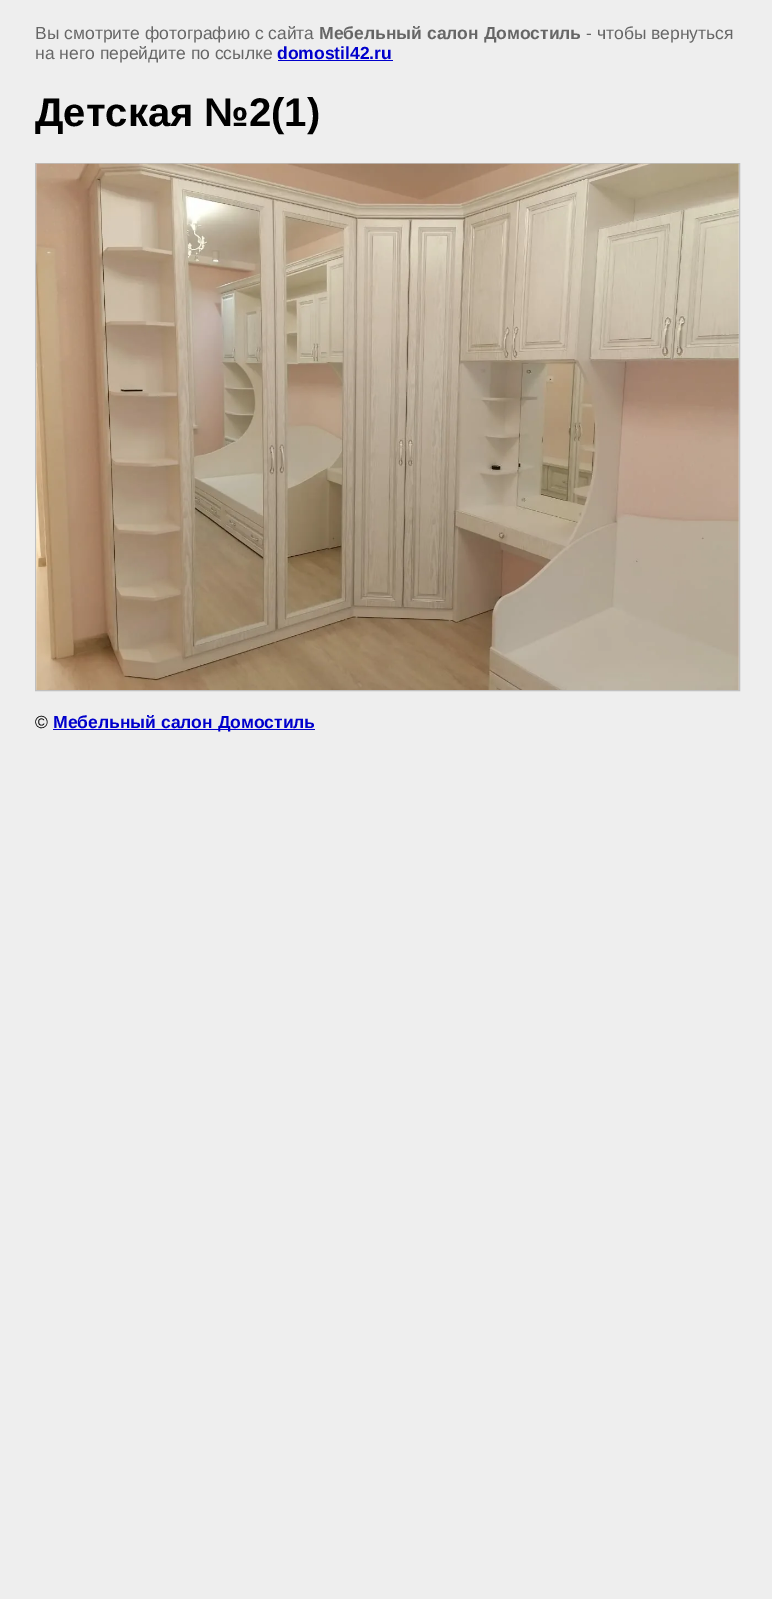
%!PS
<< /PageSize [772 1599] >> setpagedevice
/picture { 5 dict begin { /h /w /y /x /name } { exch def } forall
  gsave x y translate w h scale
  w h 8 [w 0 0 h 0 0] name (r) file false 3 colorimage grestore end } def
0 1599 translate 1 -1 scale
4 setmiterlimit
0.933 setgray
0 0 772 1599 rectfill
/LiberationSans-Regular [17.5 0 0 -17.5 0 0] selectfont
0.4 setgray
35 39 moveto (Вы смотрите фотографию с сайта) show
/LiberationSans-Bold [17.5 0 0 -17.5 0 0] selectfont
319 39 moveto (Мебельный салон Домостиль) show
/LiberationSans-Regular [17.5 0 0 -17.5 0 0] selectfont
586 39 moveto (- чтобы вернуться) show
35 59 moveto (на него перейдите по ссылке) show
/LiberationSans-Bold [17.5 0 0 -17.5 0 0] selectfont
0 0 0.8 setrgbcolor
277 59 moveto (domostil42.ru) show
278 60 115 1 rectfill
/LiberationSans-Bold [40 0 0 -40 0 0] selectfont
0 setgray
35 126 moveto (Детская №2\(1\)) show
0.753 setgray
35.5 163.5 704 527 rectstroke
(img1.rgb) 36 163 703 527 picture
/LiberationSans-Regular [17.5 0 0 -17.5 0 0] selectfont
0 setgray
35 728 moveto (©) show
0 0 0.8 setrgbcolor
53 729 262 1 rectfill
/LiberationSans-Bold [17.5 0 0 -17.5 0 0] selectfont
53 728 moveto (Мебельный салон Домостиль) show
showpage
